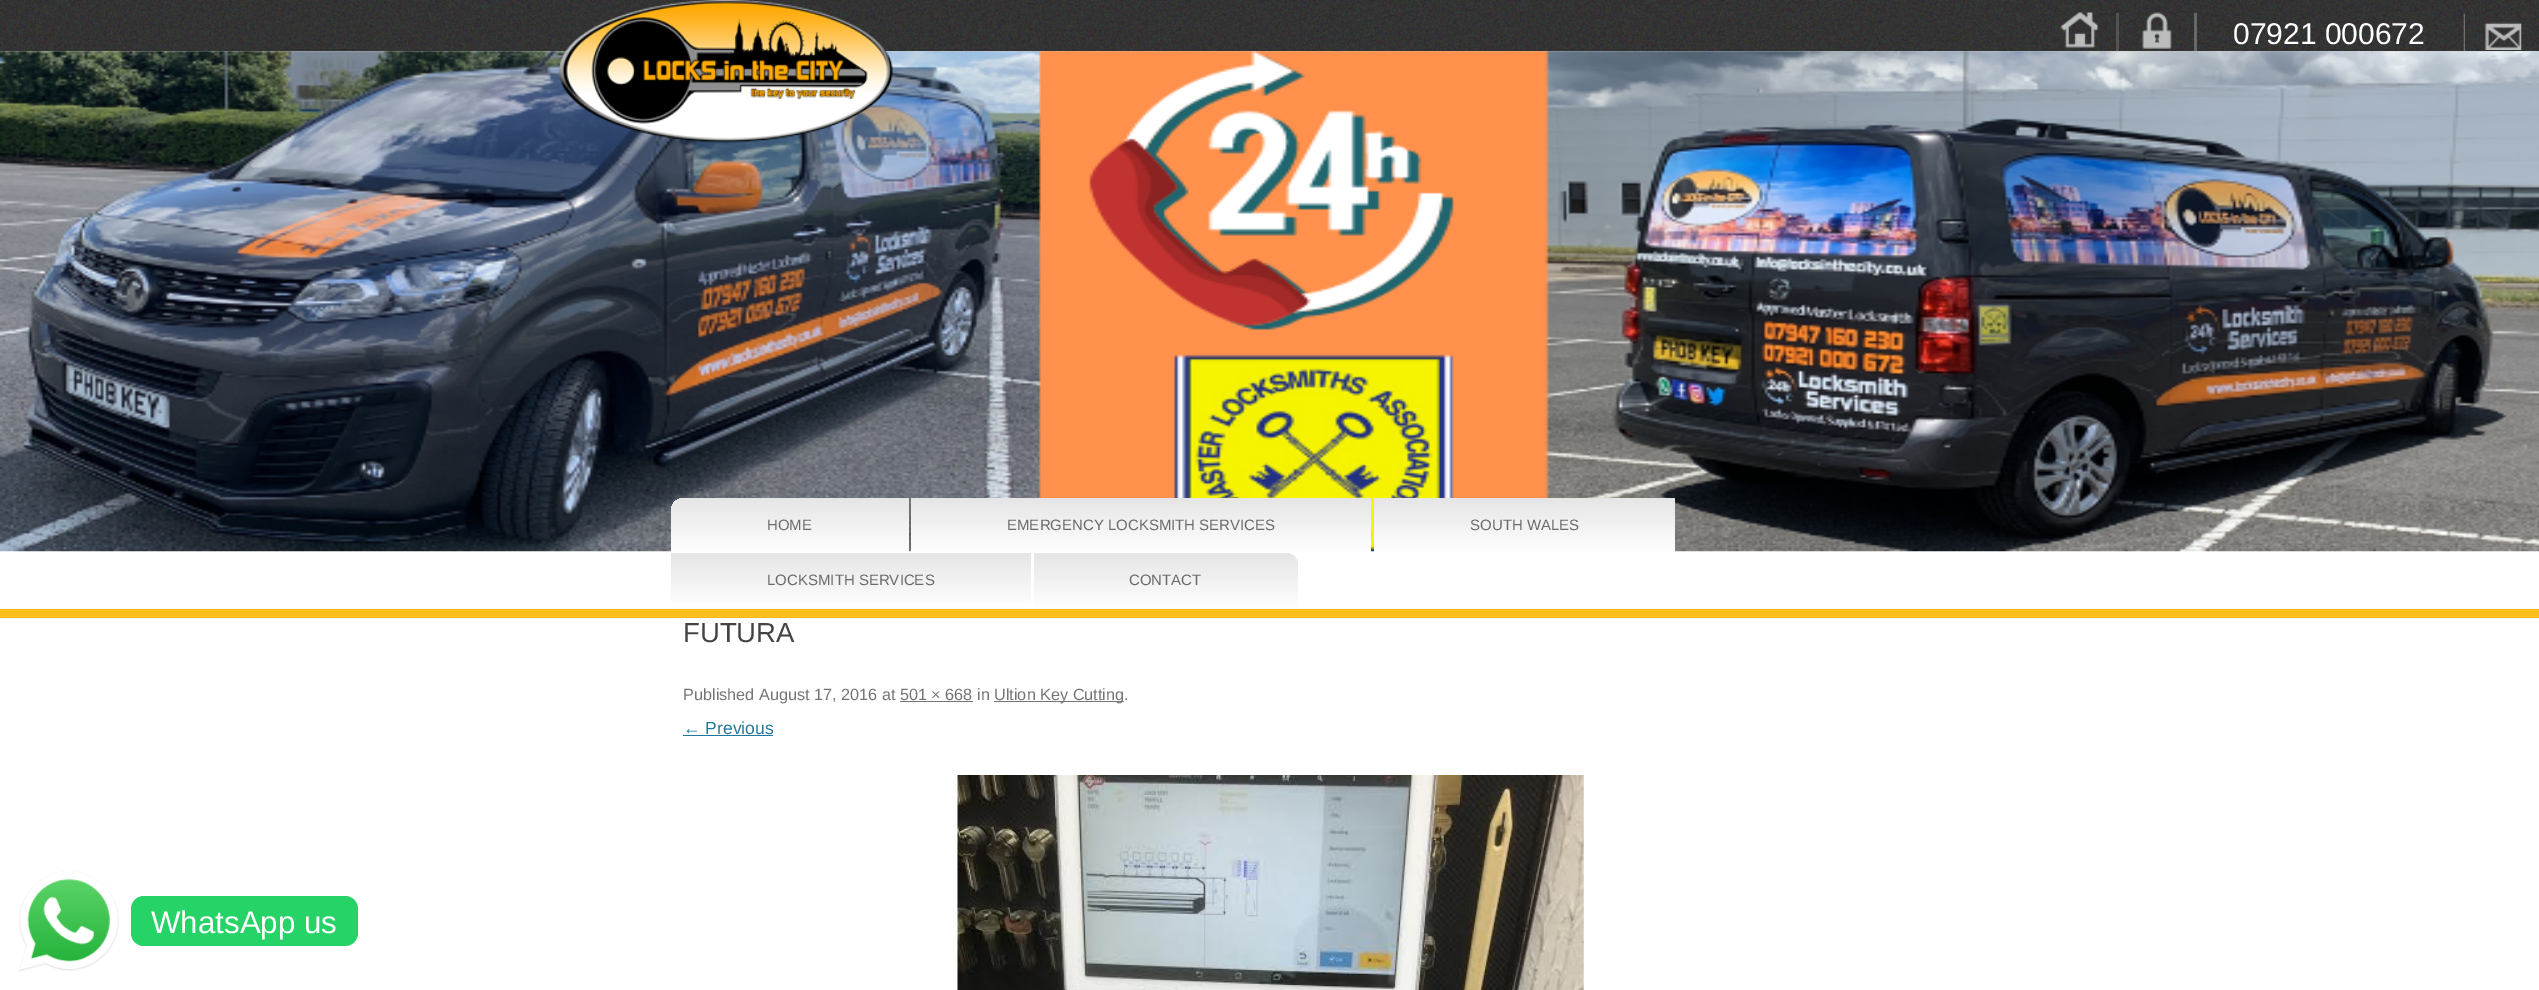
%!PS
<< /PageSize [2539 990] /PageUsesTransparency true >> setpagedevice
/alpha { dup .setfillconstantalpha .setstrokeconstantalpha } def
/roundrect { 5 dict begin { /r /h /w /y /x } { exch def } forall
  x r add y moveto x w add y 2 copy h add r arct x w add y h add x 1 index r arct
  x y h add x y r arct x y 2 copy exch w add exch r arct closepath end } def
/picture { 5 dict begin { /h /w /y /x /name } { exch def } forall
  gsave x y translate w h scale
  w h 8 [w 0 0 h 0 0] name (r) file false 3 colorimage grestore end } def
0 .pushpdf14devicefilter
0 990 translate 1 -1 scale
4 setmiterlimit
1 setgray
0 0 2539 990 rectfill
(img2.rgb) 0 0 2539 52 picture
0.32 alpha
0.592 setgray
2116 13 3 39 rectfill
0.52 alpha
2194 13 3 39 rectfill
1 alpha
(img5.rgb) 2463 13 2 39 picture
(img7.rgb) 0 51 2539 501 picture
(img1.rgb) 558 0 335 143 picture
(img3.rgb) 2060 12 38 36 picture
(img4.rgb) 2142 12 30 37 picture
/LiberationSans-Regular [30 0 0 -30 0 0] selectfont
1 setgray
2233 44 moveto (07921 000672) show
(img6.rgb) 2484 22 38 28 picture
1 0.745 0.11 setrgbcolor
0 609 2539 9 rectfill
gsave newpath 684 498 moveto 909 498 lineto 909 553 lineto 671 553 lineto 671 511 lineto 671 504 677 498 684 498 curveto closepath clip newpath
<< /ShadingType 2 /ColorSpace /DeviceRGB /Coords [790 498 790 553] /Extend [true true] /Function << /FunctionType 2 /Domain [0 1] /C0 [0.898 0.898 0.898] /C1 [1 1 1] /N 1 >> >> shfill grestore
/LiberationSans-Regular [15 0 0 -15 0 0] selectfont
0.416 setgray
767 530 moveto (HOME) show
gsave newpath 911 498 moveto 1371 498 lineto 1371 552 lineto 911 552 lineto closepath clip newpath
<< /ShadingType 2 /ColorSpace /DeviceRGB /Coords [1141 498 1141 553] /Extend [true true] /Function << /FunctionType 2 /Domain [0 1] /C0 [0.898 0.898 0.898] /C1 [1 1 1] /N 1 >> >> shfill grestore
1007 530 moveto (EMERGENCY LOCKSMITH SERVICES) show
gsave newpath 1374 498 moveto 1675 498 lineto 1675 552 lineto 1374 552 lineto closepath clip newpath
<< /ShadingType 2 /ColorSpace /DeviceRGB /Coords [1524 498 1524 553] /Extend [true true] /Function << /FunctionType 2 /Domain [0 1] /C0 [0.898 0.898 0.898] /C1 [1 1 1] /N 1 >> >> shfill grestore
1470 530 moveto (SOUTH WALES) show
gsave newpath 671 553 moveto 1031 553 lineto 1031 604 lineto 671 604 lineto closepath clip newpath
<< /ShadingType 2 /ColorSpace /DeviceRGB /Coords [851 553 851 609] /Extend [true true] /Function << /FunctionType 2 /Domain [0 1] /C0 [0.898 0.898 0.898] /C1 [1 1 1] /N 1 >> >> shfill grestore
767 585 moveto (LOCKSMITH SERVICES) show
gsave newpath 1034 553 moveto 1285 553 lineto 1292 553 1298 559 1298 566 curveto 1298 609 lineto 1034 609 lineto closepath clip newpath
<< /ShadingType 2 /ColorSpace /DeviceRGB /Coords [1166 553 1166 609] /Extend [true true] /Function << /FunctionType 2 /Domain [0 1] /C0 [0.898 0.898 0.898] /C1 [1 1 1] /N 1 >> >> shfill grestore
1129 585 moveto (CONTACT) show
/LiberationSans-Regular [27.5 0 0 -27.5 0 0] selectfont
0.267 setgray
683 642 moveto (FUTURA) show
/LiberationSans-Regular [16.25 0 0 -16.25 0 0] selectfont
0.459 setgray
683 700 moveto (Published August 17, 2016 at 501 × 668 in) show
994 701 130 1 rectfill
994 700 moveto (Ultion Key Cutting.) show
900 701 73 1 rectfill
/LiberationSans-Regular [17.5 0 0 -17.5 0 0] selectfont
0.129 0.459 0.608 setrgbcolor
683 734 moveto (← Previous) show
683 735 90 1 rectfill
(img8.rgb) 957 775 627 215 picture
(img9.rgb) 19 871 100 101 picture
0.145 0.827 0.4 setrgbcolor
131 896 227 50 13 roundrect fill
/LiberationSans-Regular [31.25 0 0 -31.25 0 0] selectfont
1 setgray
151 933 moveto (WhatsApp us) show
.poppdf14devicefilter showpage
